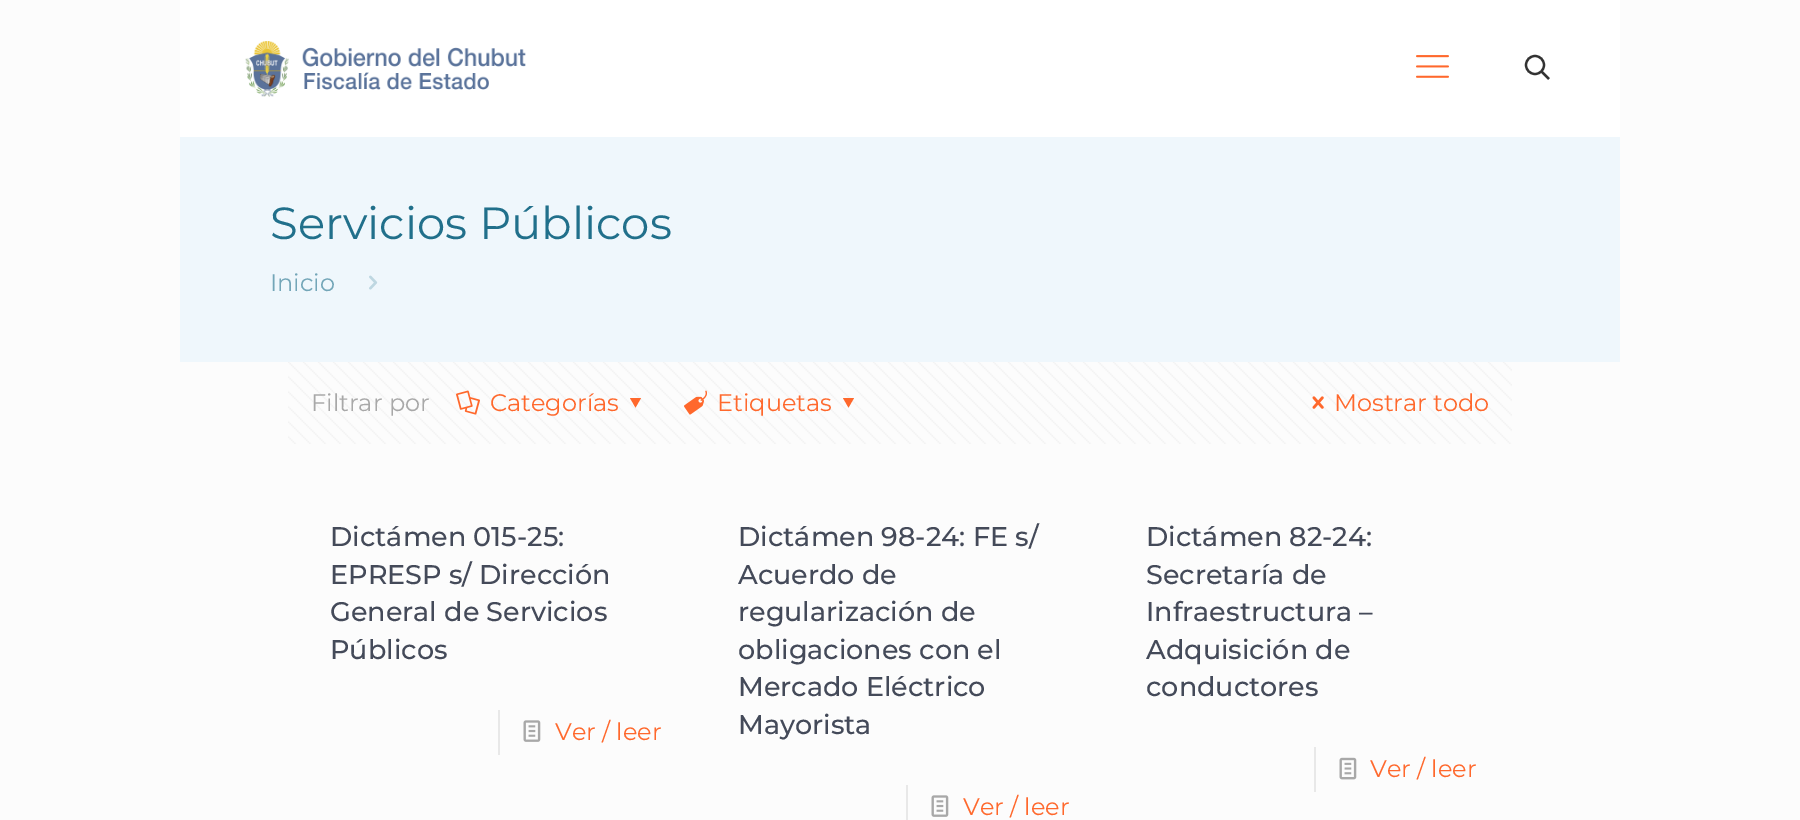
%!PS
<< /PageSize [1800 820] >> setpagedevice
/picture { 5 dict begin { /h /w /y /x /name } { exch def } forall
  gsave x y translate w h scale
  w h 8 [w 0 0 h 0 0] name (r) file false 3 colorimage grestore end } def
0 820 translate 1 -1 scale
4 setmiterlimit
0.988 setgray
0 0 1800 820 rectfill
1 setgray
180 0 1440 137 rectfill
(img1.rgb) 245 41 281 56 picture
(img2.rgb) 1416 55 33 23 picture
0.2 setgray
2.2 setlinewidth
newpath 1535 65 9 0 360 arc closepath stroke
newpath 1541.5 71.5 moveto 1549 79 lineto stroke
0.937 0.969 0.988 setrgbcolor
180 137 1440 225 rectfill
/Montserrat-Regular [45 0 0 -45 0 0] selectfont
0.129 0.439 0.545 setrgbcolor
270 239 moveto (Servicios Públicos) show
/Montserrat-Regular [24 0 0 -24 0 0] selectfont
0.451 0.651 0.722 setrgbcolor
270 291 moveto (Inicio) show
(img3.rgb) 369 275 9 15 picture
(img4.rgb) 288 362 1224 82 picture
0.659 setgray
311 411 moveto (Filtrar por) show
(img5.rgb) 456 390 24 25 picture
1 0.408 0.173 setrgbcolor
490 411 moveto (Categorías) show
newpath 641 398 moveto 635.5 407.5 lineto 630 398 lineto closepath fill
(img6.rgb) 684 390 23 25 picture
717 411 moveto (Etiquetas) show
newpath 854 398 moveto 848.5 407.5 lineto 843 398 lineto closepath fill
(img7.rgb) 1312 396 12 13 picture
1334 411 moveto (Mostrar todo) show
/Montserrat-Medium [27 0 0 -27 0 0] selectfont
0.267 0.29 0.349 setrgbcolor
330 546 moveto (Dictámen 015-25:) show
330 584 moveto (EPRESP s/ Dirección) show
330 621 moveto (General de Servicios) show
330 659 moveto (Públicos) show
0.91 setgray
498 710 2 45 rectfill
(img8.rgb) 523 720 18 22 picture
/Montserrat-Regular [24 0 0 -24 0 0] selectfont
1 0.408 0.173 setrgbcolor
555 740 moveto (Ver / leer) show
/Montserrat-Medium [27 0 0 -27 0 0] selectfont
0.267 0.29 0.349 setrgbcolor
738 546 moveto (Dictámen 98-24: FE s/) show
738 584 moveto (Acuerdo de) show
738 621 moveto (regularización de) show
738 659 moveto (obligaciones con el) show
738 696 moveto (Mercado Eléctrico) show
738 734 moveto (Mayorista) show
0.91 setgray
906 785 2 35 rectfill
(img8.rgb) 931 795 18 22 picture
/Montserrat-Regular [24 0 0 -24 0 0] selectfont
1 0.408 0.173 setrgbcolor
963 815 moveto (Ver / leer) show
/Montserrat-Medium [27 0 0 -27 0 0] selectfont
0.267 0.29 0.349 setrgbcolor
1146 546 moveto (Dictámen 82-24:) show
1146 584 moveto (Secretaría de) show
1146 621 moveto (Infraestructura –) show
1146 659 moveto (Adquisición de) show
1146 696 moveto (conductores) show
0.91 setgray
1314 747 2 45 rectfill
(img9.rgb) 1339 757 18 23 picture
/Montserrat-Regular [24 0 0 -24 0 0] selectfont
1 0.408 0.173 setrgbcolor
1370 777 moveto (Ver / leer) show
showpage
